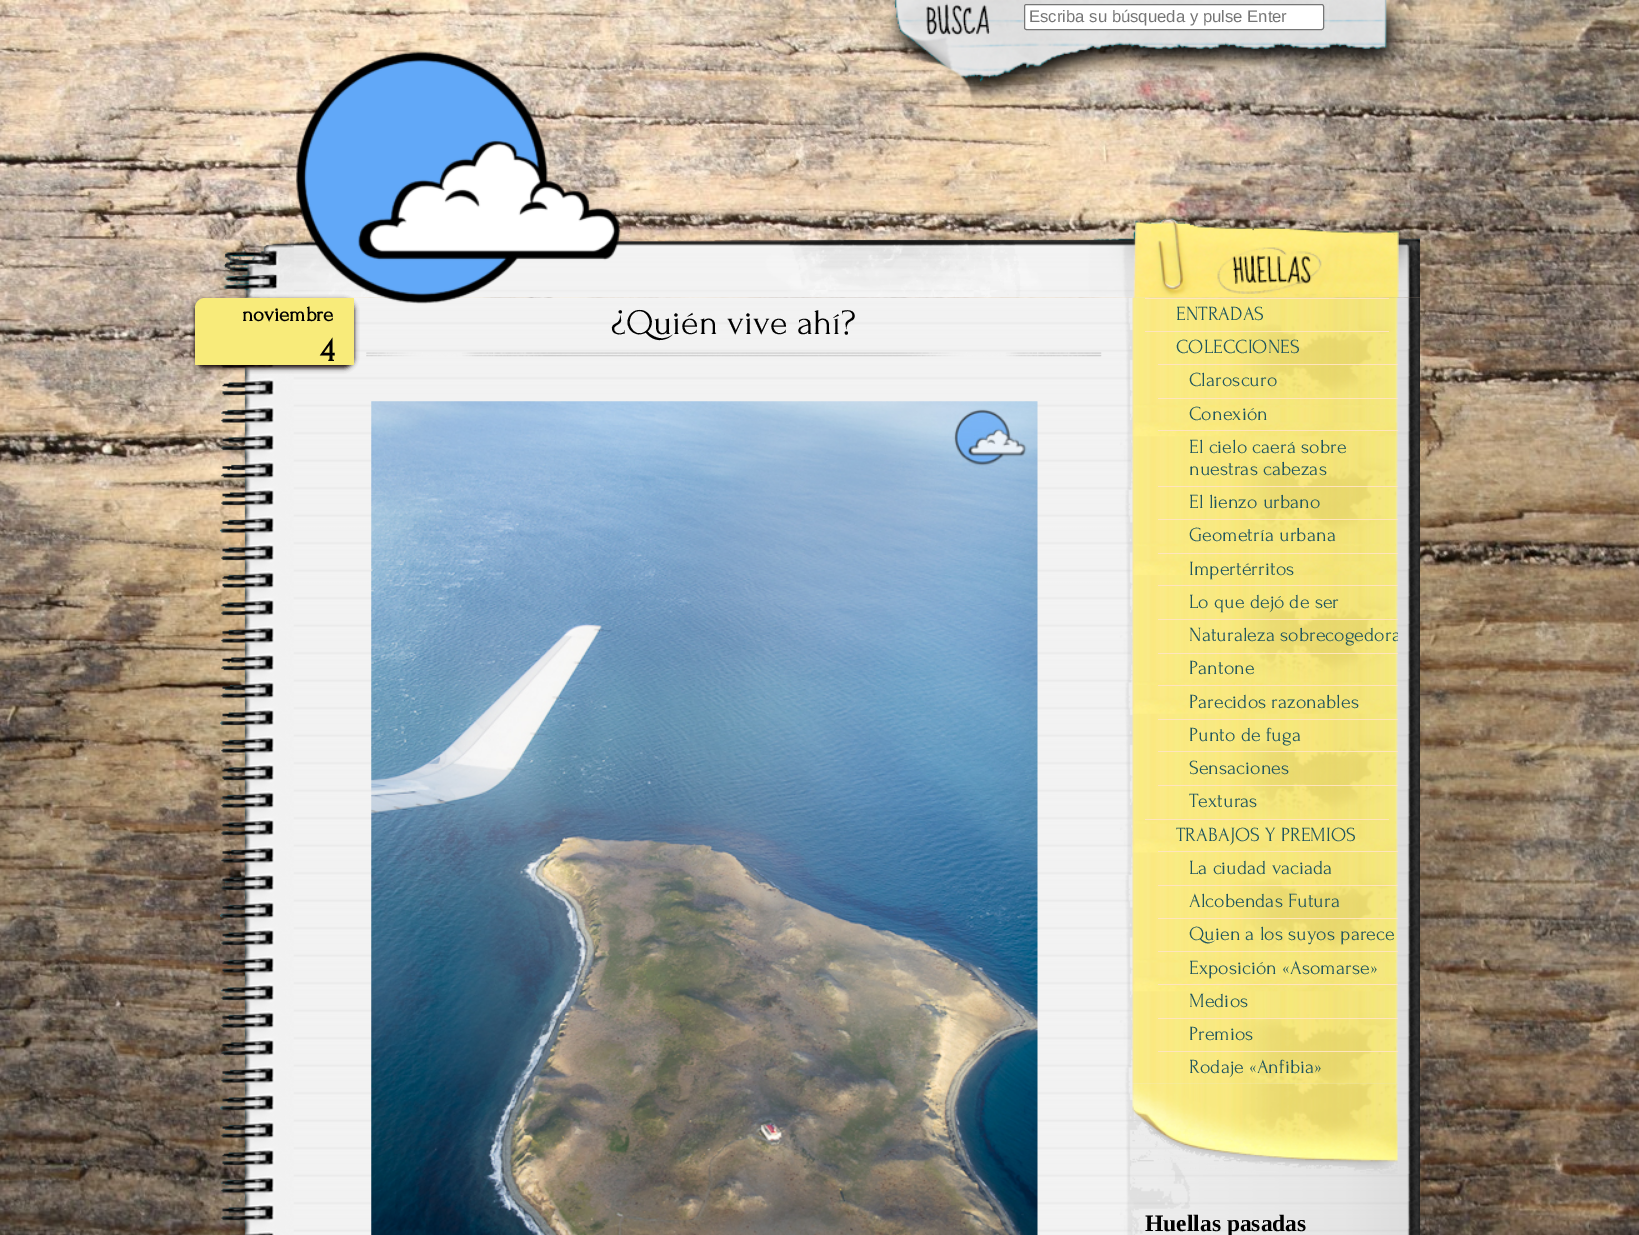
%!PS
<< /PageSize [1639 1235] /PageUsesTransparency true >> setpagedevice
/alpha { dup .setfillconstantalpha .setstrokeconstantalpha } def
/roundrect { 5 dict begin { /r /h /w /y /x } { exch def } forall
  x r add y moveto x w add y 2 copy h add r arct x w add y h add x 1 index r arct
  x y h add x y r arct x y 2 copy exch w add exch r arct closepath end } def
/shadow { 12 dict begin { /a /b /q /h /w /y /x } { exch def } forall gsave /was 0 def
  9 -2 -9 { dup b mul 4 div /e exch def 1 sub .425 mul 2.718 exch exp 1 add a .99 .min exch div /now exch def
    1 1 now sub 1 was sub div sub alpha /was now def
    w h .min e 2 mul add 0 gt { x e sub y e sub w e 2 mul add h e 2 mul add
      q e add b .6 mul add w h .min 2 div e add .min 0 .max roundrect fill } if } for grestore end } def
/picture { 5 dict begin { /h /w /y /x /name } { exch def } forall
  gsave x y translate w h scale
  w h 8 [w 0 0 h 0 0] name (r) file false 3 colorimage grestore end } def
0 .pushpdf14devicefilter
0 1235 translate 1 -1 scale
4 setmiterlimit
1 setgray
0 0 1639 1235 rectfill
(img1.rgb) 0 0 1639 1235 picture
(img4.rgb) 220 297 1200 938 picture
(img7.rgb) 1132 297 266 787 picture
(img2.rgb) 220 0 1200 298 picture
1024.5 4.5 299 25 2 roundrect gsave fill grestore
0.463 setgray
stroke
/LiberationSans-Regular [16.7 0 0 -16.7 0 0] selectfont
0.459 setgray
1029 22 moveto (Escriba su búsqueda y pulse Enter) show
(img3.rgb) 296 51 325 253 picture
0.067 0.012 0.012 setrgbcolor
195 300 159 68 10 2.5 1 shadow
0.973 0.922 0.478 setrgbcolor
newpath 205 298 moveto 353 298 lineto 353.5 298 354 298.5 354 299 curveto 354 364 lineto 354 364.5 353.5 365 353 365 curveto 196 365 lineto 195.5 365 195 364.5 195 364 curveto 195 308 lineto 195 302.5 199.5 298 205 298 curveto closepath fill
/Forum-Bold [21 0 0 -21 0 0] selectfont
0 setgray
242 321 moveto (noviembre) show
/Forum-Bold [34 0 0 -34 0 0] selectfont
320 361 moveto (4) show
(img5.rgb) 366 352 736 5 picture
/Forum-Regular [36 0 0 -36 0 0] selectfont
611 334 moveto (¿Quién vive ahí?) show
(img6.rgb) 371 401 667 834 picture
1 0.898 0.745 setrgbcolor
1145 298 244 1 rectfill
/Forum-Regular [20 0 0 -20 0 0] selectfont
0.129 0.337 0.369 setrgbcolor
1176 320 moveto (ENTRADAS) show
1 0.898 0.745 setrgbcolor
1145 331 244 1 rectfill
0.129 0.337 0.369 setrgbcolor
1176 353 moveto (COLECCIONES) show
1 0.898 0.745 setrgbcolor
1158 364 240 1 rectfill
0.129 0.337 0.369 setrgbcolor
1189 386 moveto (Claroscuro) show
1 0.898 0.745 setrgbcolor
1158 398 240 1 rectfill
0.129 0.337 0.369 setrgbcolor
1189 420 moveto (Conexión) show
1 0.898 0.745 setrgbcolor
1158 430 240 1 rectfill
0.129 0.337 0.369 setrgbcolor
1189 453 moveto (El cielo caerá sobre) show
1189 475 moveto (nuestras cabezas) show
1 0.898 0.745 setrgbcolor
1158 486 240 1 rectfill
0.129 0.337 0.369 setrgbcolor
1189 508 moveto (El lienzo urbano) show
1 0.898 0.745 setrgbcolor
1158 519 240 1 rectfill
0.129 0.337 0.369 setrgbcolor
1189 541 moveto (Geometría urbana) show
1 0.898 0.745 setrgbcolor
1158 553 240 1 rectfill
0.129 0.337 0.369 setrgbcolor
1189 575 moveto (Impertérritos) show
1 0.898 0.745 setrgbcolor
1158 585 240 1 rectfill
0.129 0.337 0.369 setrgbcolor
1189 608 moveto (Lo que dejó de ser) show
1 0.898 0.745 setrgbcolor
1158 619 240 1 rectfill
gsave
1133 364 265 455 rectclip
0.129 0.337 0.369 setrgbcolor
1189 641 moveto (Naturaleza sobrecogedora) show
grestore
1158 653 240 1 rectfill
0.129 0.337 0.369 setrgbcolor
1189 674 moveto (Pantone) show
1 0.898 0.745 setrgbcolor
1158 685 240 1 rectfill
0.129 0.337 0.369 setrgbcolor
1189 708 moveto (Parecidos razonables) show
1 0.898 0.745 setrgbcolor
1158 719 240 1 rectfill
0.129 0.337 0.369 setrgbcolor
1189 741 moveto (Punto de fuga) show
1 0.898 0.745 setrgbcolor
1158 751 240 1 rectfill
0.129 0.337 0.369 setrgbcolor
1189 774 moveto (Sensaciones) show
1 0.898 0.745 setrgbcolor
1158 785 240 1 rectfill
0.129 0.337 0.369 setrgbcolor
1189 807 moveto (Texturas) show
1 0.898 0.745 setrgbcolor
1145 819 244 1 rectfill
0.129 0.337 0.369 setrgbcolor
1176 841 moveto (TRABAJOS Y PREMIOS) show
1 0.898 0.745 setrgbcolor
1158 851 240 1 rectfill
0.129 0.337 0.369 setrgbcolor
1189 874 moveto (La ciudad vaciada) show
1 0.898 0.745 setrgbcolor
1158 885 240 1 rectfill
0.129 0.337 0.369 setrgbcolor
1189 907 moveto (Alcobendas Futura) show
1 0.898 0.745 setrgbcolor
1158 918 240 1 rectfill
0.129 0.337 0.369 setrgbcolor
1189 940 moveto (Quien a los suyos parece) show
1 0.898 0.745 setrgbcolor
1158 951 240 1 rectfill
0.129 0.337 0.369 setrgbcolor
1189 974 moveto (Exposición «Asomarse») show
1 0.898 0.745 setrgbcolor
1158 984 240 1 rectfill
0.129 0.337 0.369 setrgbcolor
1189 1007 moveto (Medios) show
1 0.898 0.745 setrgbcolor
1158 1018 240 1 rectfill
0.129 0.337 0.369 setrgbcolor
1189 1040 moveto (Premios) show
1 0.898 0.745 setrgbcolor
1158 1051 240 1 rectfill
0.129 0.337 0.369 setrgbcolor
1189 1073 moveto (Rodaje «Anfibia») show
(img8.rgb) 1132 1083 266 91 picture
/LiberationSerif-Bold [23.5 0 0 -23.5 0 0] selectfont
0 setgray
1145 1231 moveto (Huellas pasadas) show
.poppdf14devicefilter showpage
